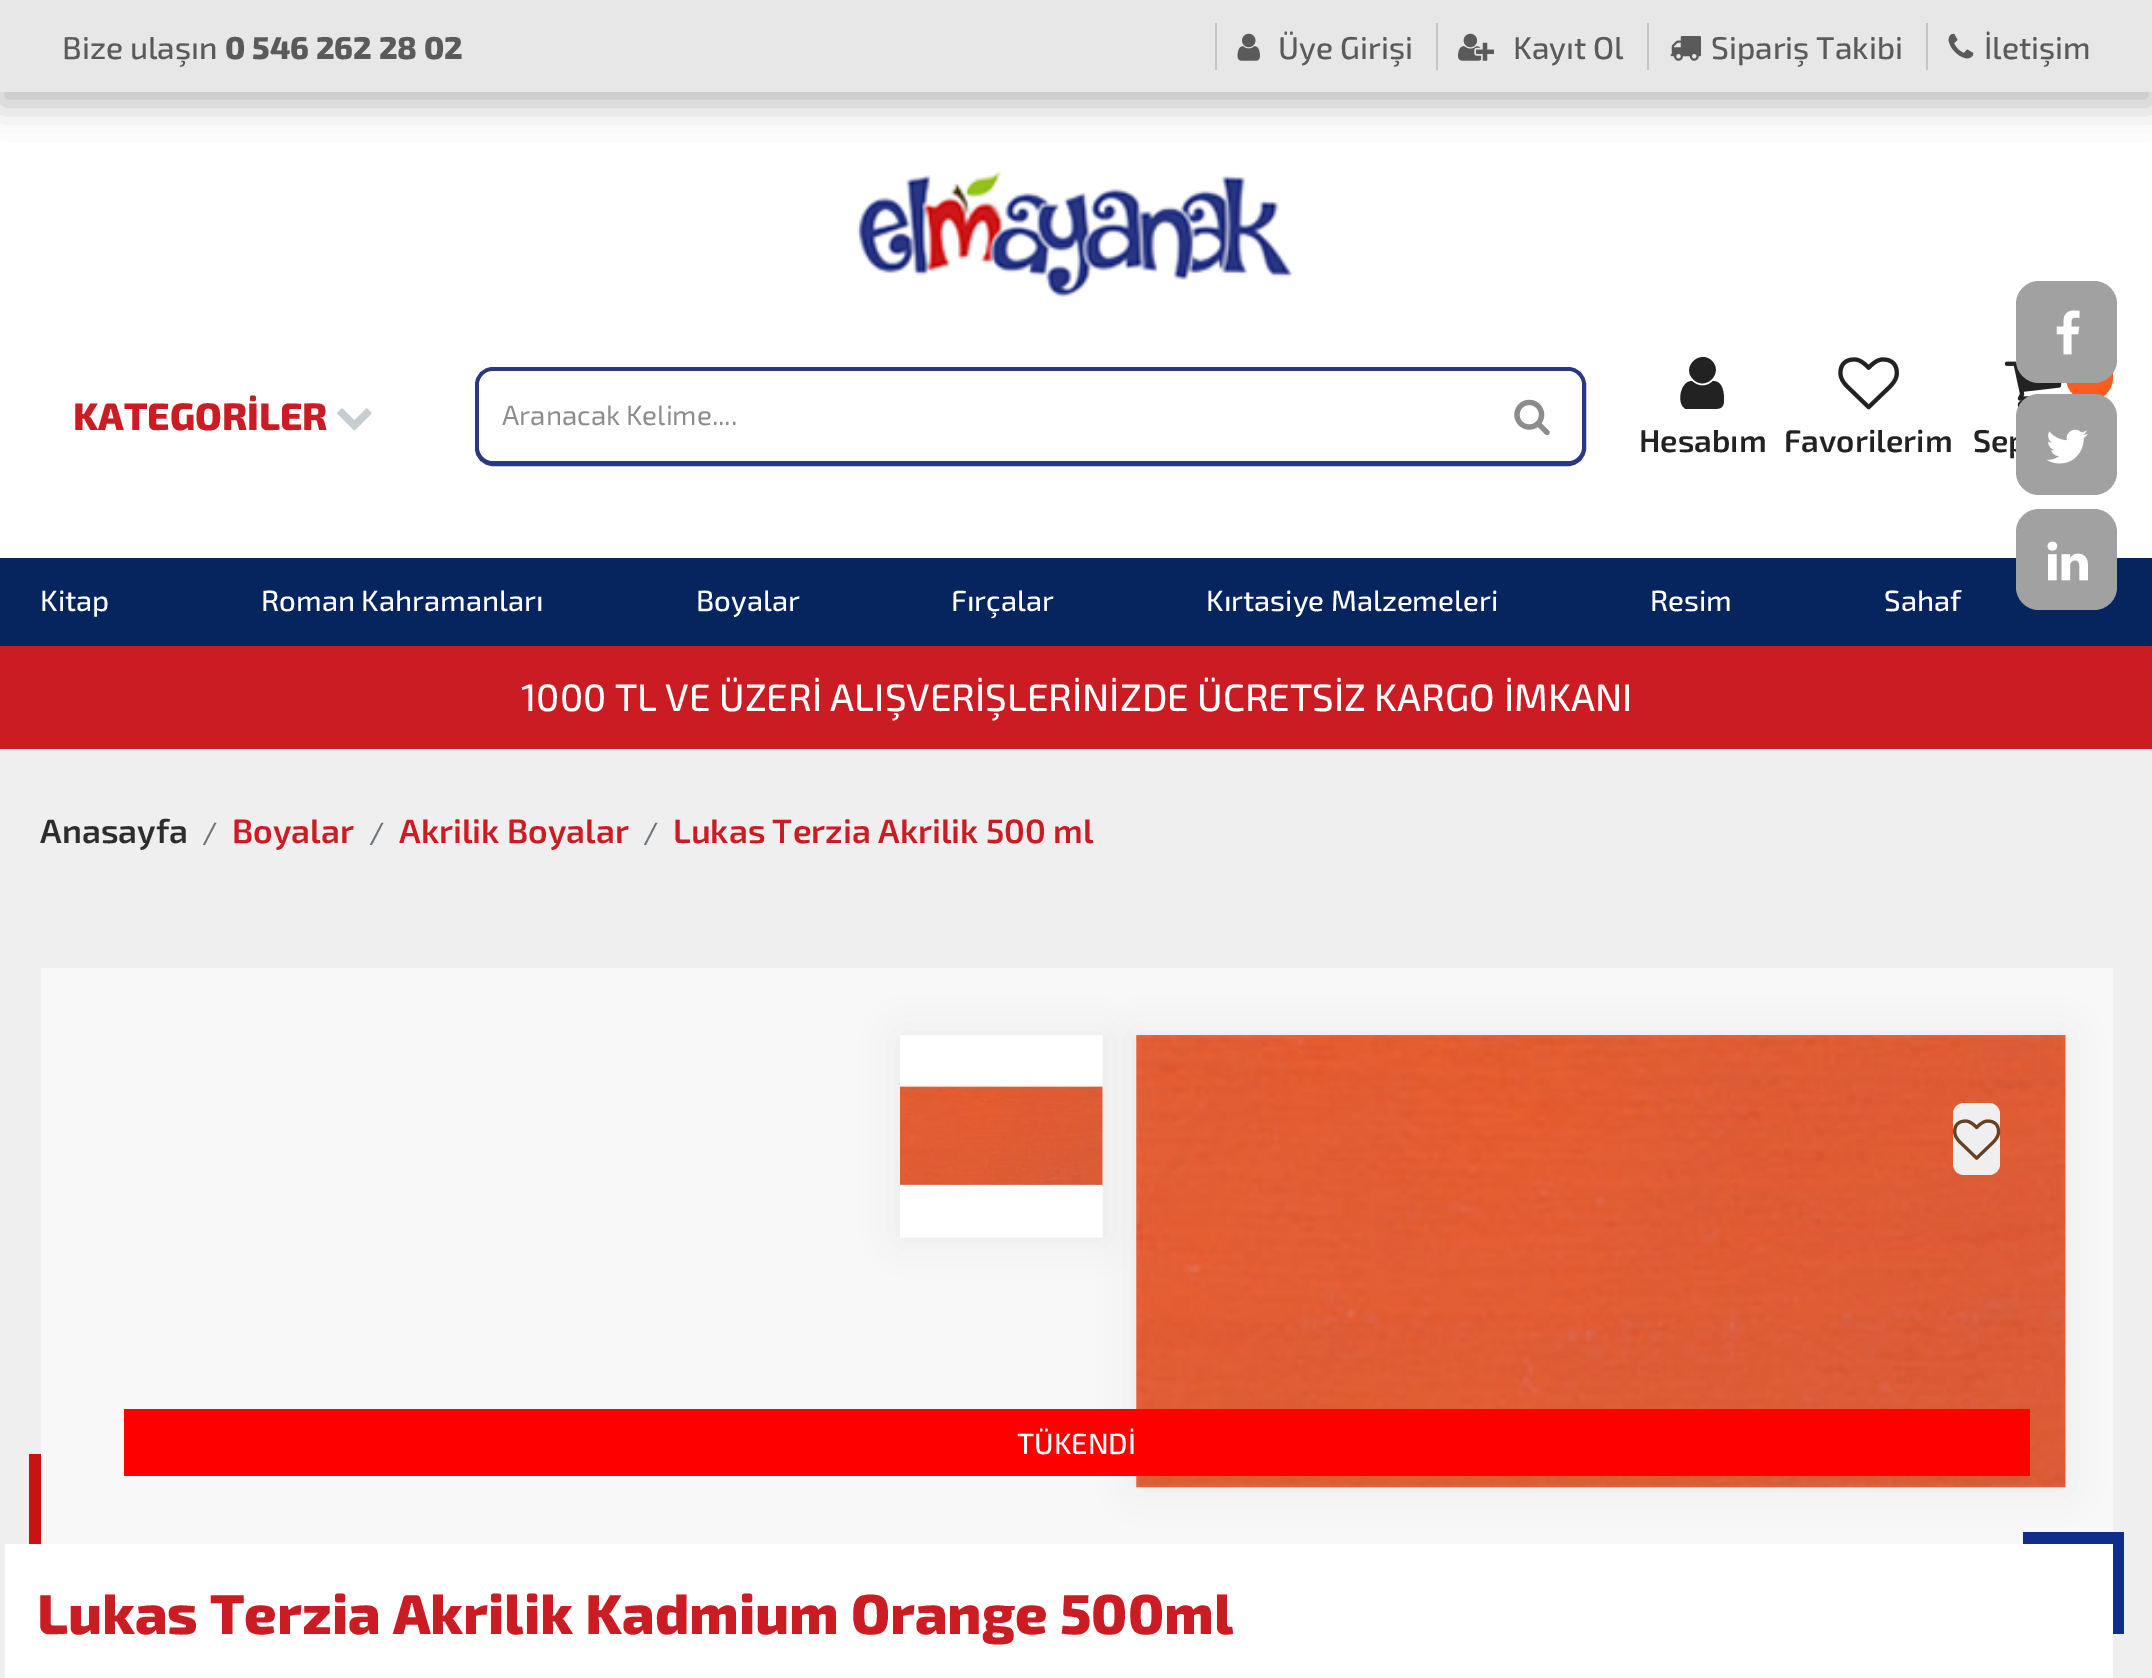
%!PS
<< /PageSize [2152 1678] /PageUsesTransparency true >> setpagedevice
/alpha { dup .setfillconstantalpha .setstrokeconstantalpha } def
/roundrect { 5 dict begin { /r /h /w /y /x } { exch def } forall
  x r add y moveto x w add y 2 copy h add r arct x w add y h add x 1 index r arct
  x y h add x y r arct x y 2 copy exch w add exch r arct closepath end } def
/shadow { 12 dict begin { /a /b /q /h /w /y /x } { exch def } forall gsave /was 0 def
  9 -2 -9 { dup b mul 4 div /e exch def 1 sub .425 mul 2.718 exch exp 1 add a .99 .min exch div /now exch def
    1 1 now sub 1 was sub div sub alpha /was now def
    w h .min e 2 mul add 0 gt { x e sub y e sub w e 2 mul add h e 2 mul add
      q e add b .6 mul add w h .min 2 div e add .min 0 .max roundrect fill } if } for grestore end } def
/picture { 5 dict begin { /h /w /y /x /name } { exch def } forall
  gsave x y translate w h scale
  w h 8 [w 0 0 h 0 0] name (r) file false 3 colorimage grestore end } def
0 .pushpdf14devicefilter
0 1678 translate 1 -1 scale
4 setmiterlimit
0.937 setgray
0 0 2152 1678 rectfill
1 setgray
0 92 2152 466 rectfill
0.149 0.161 0.137 setrgbcolor
0 11 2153 93 0 17 0.32 shadow
0.906 setgray
0 0 2152 92 rectfill
/Exo2-Medium [31.5 0 0 -31.5 0 0] selectfont
0.353 setgray
62 59 moveto (Bize ulaşın) show
/Exo2-ExtraBold [31.5 0 0 -31.5 0 0] selectfont
225 59 moveto (0 546 262 28 02) show
0.769 setgray
1215 23 2 47 rectfill
(img1.rgb) 1237 33 23 28 picture
/Exo2-Medium [31.5 0 0 -31.5 0 0] selectfont
0.353 setgray
1278 59 moveto (Üye Girişi) show
0.769 setgray
1436 23 2 47 rectfill
(img2.rgb) 1458 33 36 28 picture
0.353 setgray
1513 59 moveto (Kayıt Ol) show
0.769 setgray
1647 23 2 47 rectfill
(img3.rgb) 1670 36 31 25 picture
0.353 setgray
1711 59 moveto (Sipariş Takibi) show
0.769 setgray
1926 23 2 47 rectfill
(img4.rgb) 1948 33 26 26 picture
0.353 setgray
1984 59 moveto (İletişim) show
(img5.rgb) 857 171 436 126 picture
/Exo2-ExtraBold [38.25 0 0 -38.25 0 0] selectfont
0.796 0.106 0.137 setrgbcolor
73 430 moveto (KATEGORİLER) show
(img6.rgb) 337 408 35 23 picture
0.161 0.22 0.506 setrgbcolor
5 setlinewidth
477.5 369.5 1106 94 15.5 roundrect stroke
1 setgray
newpath 493 371 moveto 1483 371 lineto 1483 461 lineto 493 461 lineto 485.5 461 479 454.5 479 447 curveto 479 385 lineto 479 377.5 485.5 371 493 371 curveto closepath fill
/Exo2-Regular [27.75 0 0 -27.75 0 0] selectfont
0.549 setgray
502 425 moveto (Aranacak Kelime....) show
1 setgray
newpath 1483 371 moveto 1568 371 lineto 1575.5 371 1582 377.5 1582 385 curveto 1582 447 lineto 1582 454.5 1575.5 461 1568 461 curveto 1483 461 lineto closepath fill
(img7.rgb) 1514 399 36 37 picture
0.133 setgray
newpath 1724 400 moveto 1724 409 1719 409 1712 409 curveto 1686 409 lineto 1676 405 1680 381 1692 381 curveto 1698 387 1707 387 1713 381 curveto 1723 381 1724 393 1724 400 curveto closepath 1712 361 moveto 1724 373 1705 392 1693 379 curveto 1681 367 1700 349 1712 361 curveto closepath fill
/Exo2-SemiBold [31.5 0 0 -31.5 0 0] selectfont
1639 452 moveto (Hesabım) show
(img8.rgb) 1838 357 61 53 picture
1784 452 moveto (Favorilerim) show
(img9.rgb) 2004 361 58 47 picture
0.992 0.361 0.125 setrgbcolor
2066 353 47 48 23.5 roundrect fill
0.133 setgray
1973 452 moveto (Sep) show
0.024 0.145 0.369 setrgbcolor
0 558 2152 88 rectfill
/Exo2-Medium [29.25 0 0 -29.25 0 0] selectfont
1 setgray
40 611 moveto (Kitap) show
261 611 moveto (Roman Kahramanları) show
696 611 moveto (Boyalar) show
951 611 moveto (Fırçalar) show
1206 611 moveto (Kırtasiye Malzemeleri) show
1650 611 moveto (Resim) show
1884 611 moveto (Sahaf) show
0.796 0.106 0.137 setrgbcolor
0 646 2152 103 rectfill
/Exo2-Medium [38.25 0 0 -38.25 0 0] selectfont
1 setgray
521 711 moveto (1000 TL VE ÜZERİ ALIŞVERİŞLERİNİZDE ÜCRETSİZ KARGO İMKANI) show
/Exo2-SemiBold [33.75 0 0 -33.75 0 0] selectfont
0.176 setgray
40 843 moveto (Anasayfa) show
/Exo2-Medium [29.25 0 0 -29.25 0 0] selectfont
0.424 0.459 0.49 setrgbcolor
202 843 moveto (/) show
/Exo2-SemiBold [33.75 0 0 -33.75 0 0] selectfont
0.796 0.106 0.137 setrgbcolor
232 843 moveto (Boyalar) show
/Exo2-Medium [29.25 0 0 -29.25 0 0] selectfont
0.424 0.459 0.49 setrgbcolor
369 843 moveto (/) show
/Exo2-SemiBold [33.75 0 0 -33.75 0 0] selectfont
0.796 0.106 0.137 setrgbcolor
399 843 moveto (Akrilik Boyalar) show
/Exo2-Medium [29.25 0 0 -29.25 0 0] selectfont
0.424 0.459 0.49 setrgbcolor
643 843 moveto (/) show
/Exo2-SemiBold [33.75 0 0 -33.75 0 0] selectfont
0.796 0.106 0.137 setrgbcolor
673 843 moveto (Lukas Terzia Akrilik 500 ml) show
0.973 setgray
41 968 2072 576 rectfill
0.149 0.161 0.137 setrgbcolor
1136 1035 930 452 0 18 0.07 shadow
(img11.rgb) 1136 1035 930 453 picture
900 1035 203 203 0 18 0.07 shadow
(img10.rgb) 900 1035 203 203 picture
0.937 setgray
1953 1103 47 72 11 roundrect fill
(img12.rgb) 1953 1119 48 41 picture
1 0 0 setrgbcolor
124 1409 1906 67 rectfill
/Exo2-Medium [29.25 0 0 -29.25 0 0] selectfont
1 setgray
1017 1454 moveto (TÜKENDİ) show
0.78 0.075 0.075 setrgbcolor
29 1454 12 90 rectfill
1 setgray
5 1544 2108 134 rectfill
/Exo2-ExtraBold [56.25 0 0 -56.25 0 0] selectfont
0.796 0.106 0.137 setrgbcolor
37 1634 moveto (Lukas Terzia Akrilik Kadmium Orange 500ml) show
0.063 0.176 0.541 setrgbcolor
2023 1532 90 12 rectfill
2113 1532 11 102 rectfill
0.631 setgray
2016 281 101 102 23 roundrect fill
(img13.rgb) 2056 310 24 45 picture
2016 394 101 101 23 roundrect fill
(img14.rgb) 2046 429 42 35 picture
2016 509 101 101 23 roundrect fill
(img15.rgb) 2047 541 41 40 picture
.poppdf14devicefilter showpage
